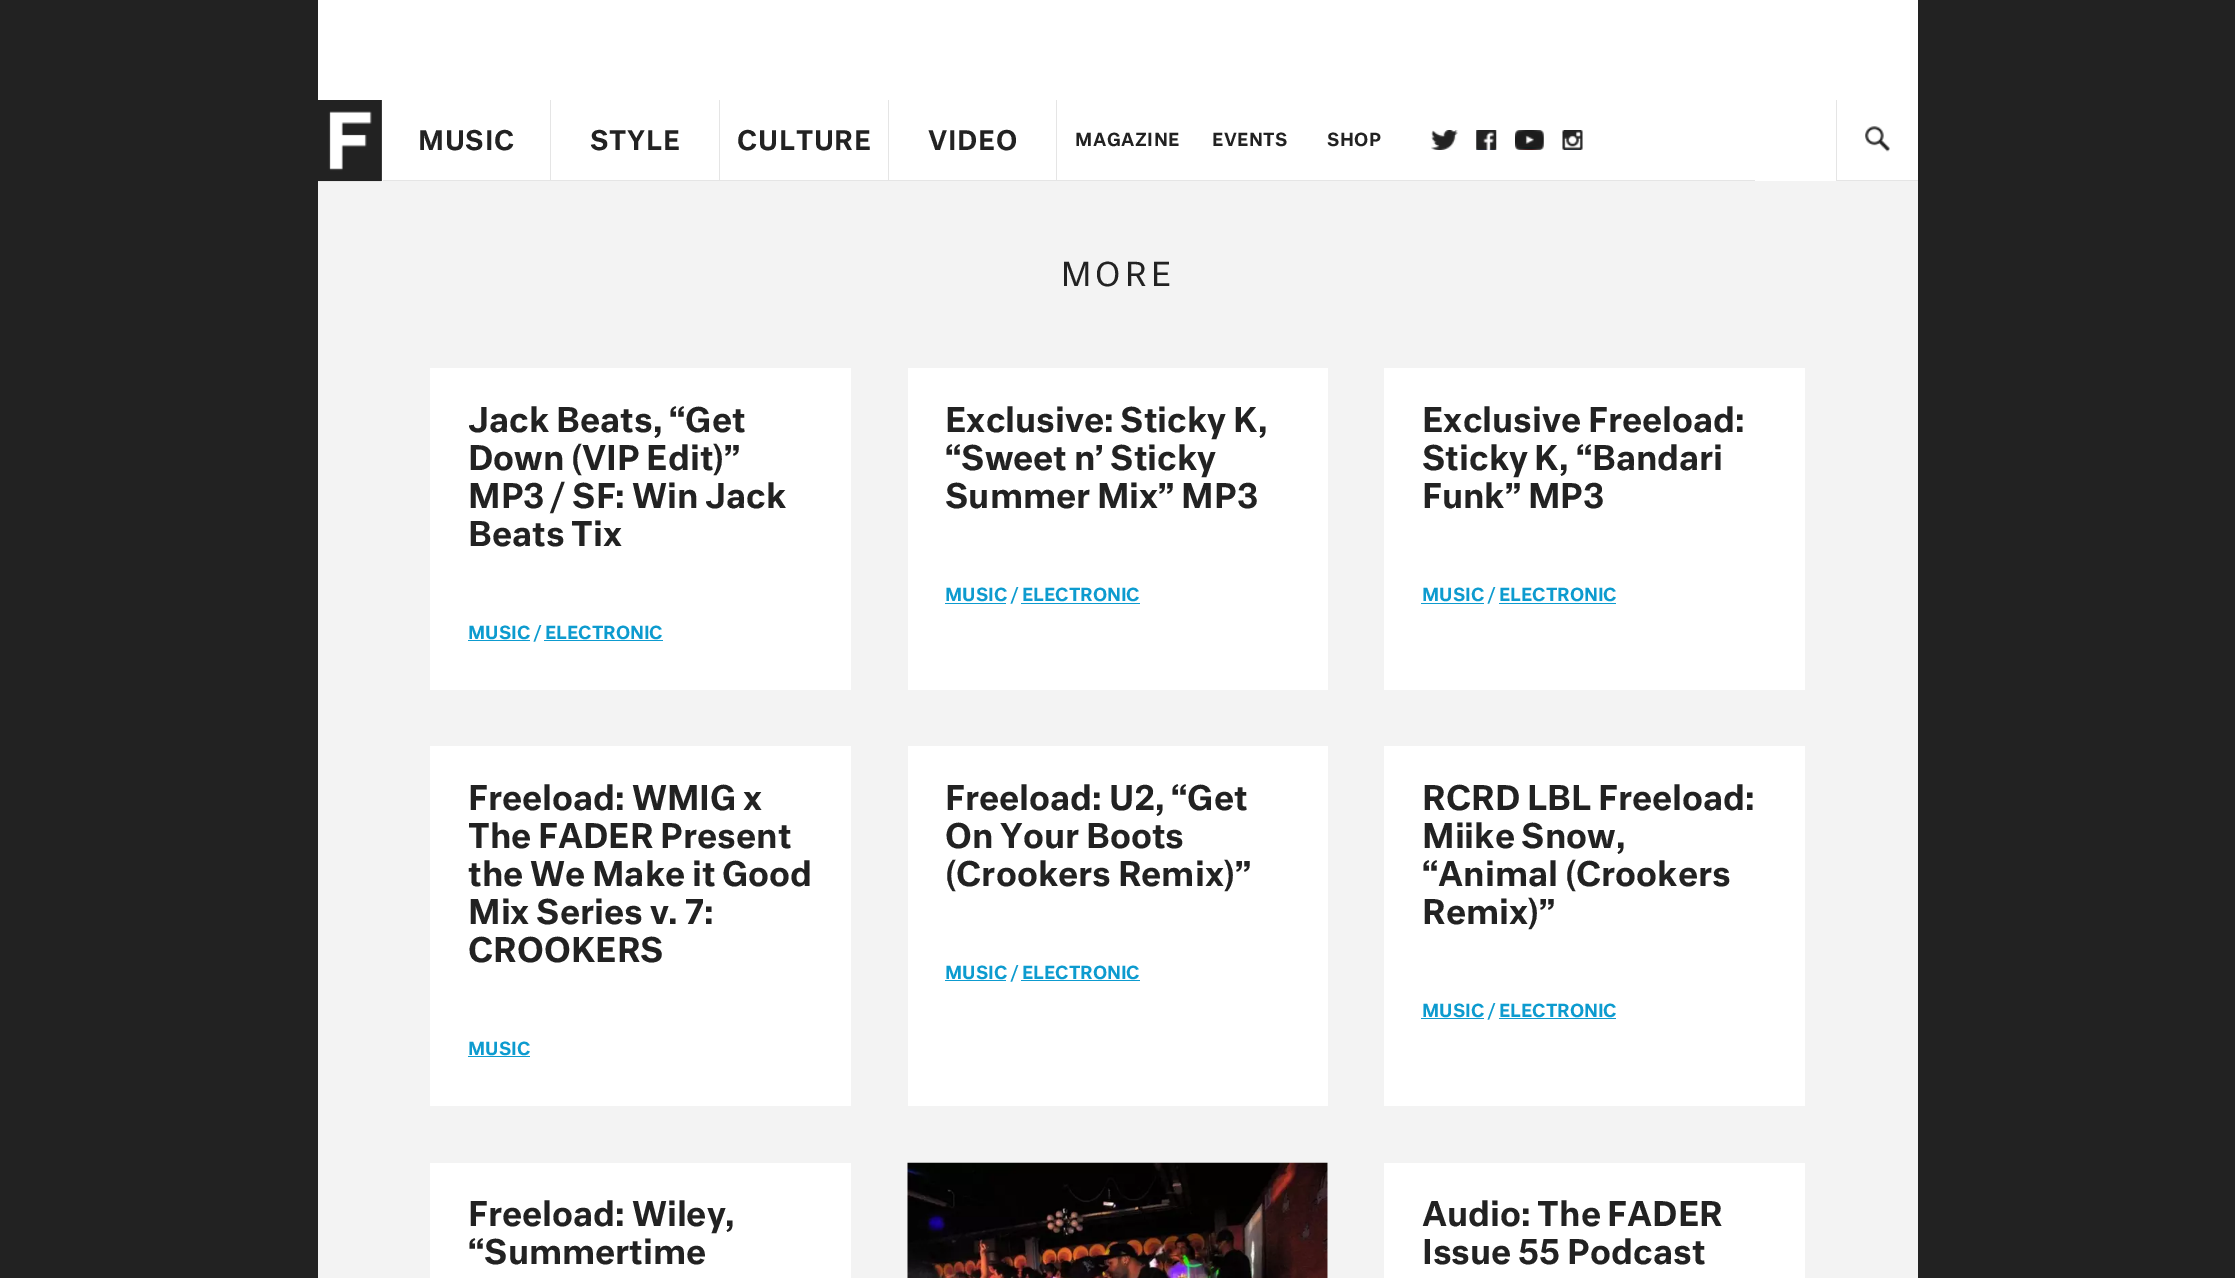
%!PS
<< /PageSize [2235 1278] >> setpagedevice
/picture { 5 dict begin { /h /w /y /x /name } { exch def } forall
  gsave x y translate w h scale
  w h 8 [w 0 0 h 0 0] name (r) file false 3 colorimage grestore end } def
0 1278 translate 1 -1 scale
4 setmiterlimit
0.133 setgray
0 0 2235 1278 rectfill
1 setgray
318 0 1600 181 rectfill
0.267 setgray
381 100 1 81 rectfill
0.953 setgray
318 181 1600 1097 rectfill
(img1.rgb) 318 100 64 82 picture
0.898 setgray
550 100 1 81 rectfill
383 180 168 1 rectfill
/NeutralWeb-Medium [26.25 0 0 -26.25 0 0] selectfont
0.133 setgray
418 150 moveto 0.75 0 (MUSIC) ashow
0.898 setgray
719 100 1 81 rectfill
551 180 169 1 rectfill
0.133 setgray
590 150 moveto 0.75 0 (STYLE) ashow
0.898 setgray
888 100 1 81 rectfill
720 180 169 1 rectfill
0.133 setgray
737 150 moveto 0.75 0 (CULTURE) ashow
0.898 setgray
1056 100 1 81 rectfill
889 180 866 1 rectfill
0.133 setgray
928 150 moveto 0.75 0 (VIDEO) ashow
/NeutralWeb-Medium [17.5 0 0 -17.5 0 0] selectfont
1075 146 moveto 0.5 0 (MAGAZINE) ashow
1212 146 moveto 0.5 0 (EVENTS) ashow
1327 146 moveto 0.5 0 (SHOP) ashow
(img2.rgb) 1431 130 27 20 picture
(img3.rgb) 1476 130 21 20 picture
(img4.rgb) 1515 130 29 20 picture
(img5.rgb) 1562 130 21 20 picture
0.898 setgray
1836 180 82 1 rectfill
1836 100 1 81 rectfill
(img6.rgb) 1865 126 25 26 picture
/NeutralWeb-Regular [32 0 0 -32 0 0] selectfont
0.133 setgray
1061 286 moveto 4 0 (MORE) ashow
1 setgray
430 368 421 322 rectfill
/NeutralWeb-Medium [33 0 0 -33 0 0] selectfont
0.133 setgray
468 432 moveto (Jack Beats, “Get) show
468 470 moveto (Down \(VIP Edit\)”) show
468 508 moveto (MP3 / SF: Win Jack) show
468 546 moveto (Beats Tix) show
0.051 0.608 0.812 setrgbcolor
468 640 62 1 rectfill
/NeutralWeb-Medium [17.5 0 0 -17.5 0 0] selectfont
468 639 moveto (MUSIC / ELECTRONIC) show
544 640 119 1 rectfill
1 setgray
908 368 420 322 rectfill
/NeutralWeb-Medium [33 0 0 -33 0 0] selectfont
0.133 setgray
945 432 moveto (Exclusive: Sticky K,) show
945 470 moveto (“Sweet n’ Sticky) show
945 508 moveto (Summer Mix” MP3) show
0.051 0.608 0.812 setrgbcolor
945 603 61 1 rectfill
/NeutralWeb-Medium [17.5 0 0 -17.5 0 0] selectfont
945 601 moveto (MUSIC / ELECTRONIC) show
1021 603 119 1 rectfill
1 setgray
1384 368 421 322 rectfill
/NeutralWeb-Medium [33 0 0 -33 0 0] selectfont
0.133 setgray
1422 432 moveto (Exclusive Freeload:) show
1422 470 moveto (Sticky K, “Bandari) show
1422 508 moveto (Funk” MP3) show
0.051 0.608 0.812 setrgbcolor
1421 603 63 1 rectfill
/NeutralWeb-Medium [17.5 0 0 -17.5 0 0] selectfont
1422 601 moveto (MUSIC / ELECTRONIC) show
1499 603 117 1 rectfill
1 setgray
430 746 421 360 rectfill
/NeutralWeb-Medium [33 0 0 -33 0 0] selectfont
0.133 setgray
468 810 moveto (Freeload: WMIG x) show
468 848 moveto (The FADER Present) show
468 886 moveto (the We Make it Good) show
468 924 moveto (Mix Series v. 7:) show
468 962 moveto (CROOKERS) show
/NeutralWeb-Medium [17.5 0 0 -17.5 0 0] selectfont
0.051 0.608 0.812 setrgbcolor
468 1055 moveto (MUSIC) show
468 1056 62 1 rectfill
1 setgray
908 746 420 360 rectfill
/NeutralWeb-Medium [33 0 0 -33 0 0] selectfont
0.133 setgray
945 810 moveto (Freeload: U2, “Get) show
945 848 moveto (On Your Boots) show
945 886 moveto (\(Crookers Remix\)”) show
0.051 0.608 0.812 setrgbcolor
945 980 61 1 rectfill
/NeutralWeb-Medium [17.5 0 0 -17.5 0 0] selectfont
945 979 moveto (MUSIC / ELECTRONIC) show
1021 980 119 1 rectfill
1 setgray
1384 746 421 360 rectfill
/NeutralWeb-Medium [33 0 0 -33 0 0] selectfont
0.133 setgray
1422 810 moveto (RCRD LBL Freeload:) show
1422 848 moveto (Miike Snow,) show
1422 886 moveto (“Animal \(Crookers) show
1422 924 moveto (Remix\)”) show
0.051 0.608 0.812 setrgbcolor
1421 1018 63 1 rectfill
/NeutralWeb-Medium [17.5 0 0 -17.5 0 0] selectfont
1422 1017 moveto (MUSIC / ELECTRONIC) show
1499 1018 117 1 rectfill
1 setgray
430 1163 421 115 rectfill
/NeutralWeb-Medium [33 0 0 -33 0 0] selectfont
0.133 setgray
468 1226 moveto (Freeload: Wiley,) show
468 1264 moveto (“Summertime) show
1 setgray
1327 1163 1 115 rectfill
(img7.rgb) 907 1162 421 116 picture
1384 1163 421 115 rectfill
0.133 setgray
1422 1226 moveto (Audio: The FADER) show
1422 1264 moveto (Issue 55 Podcast) show
showpage
